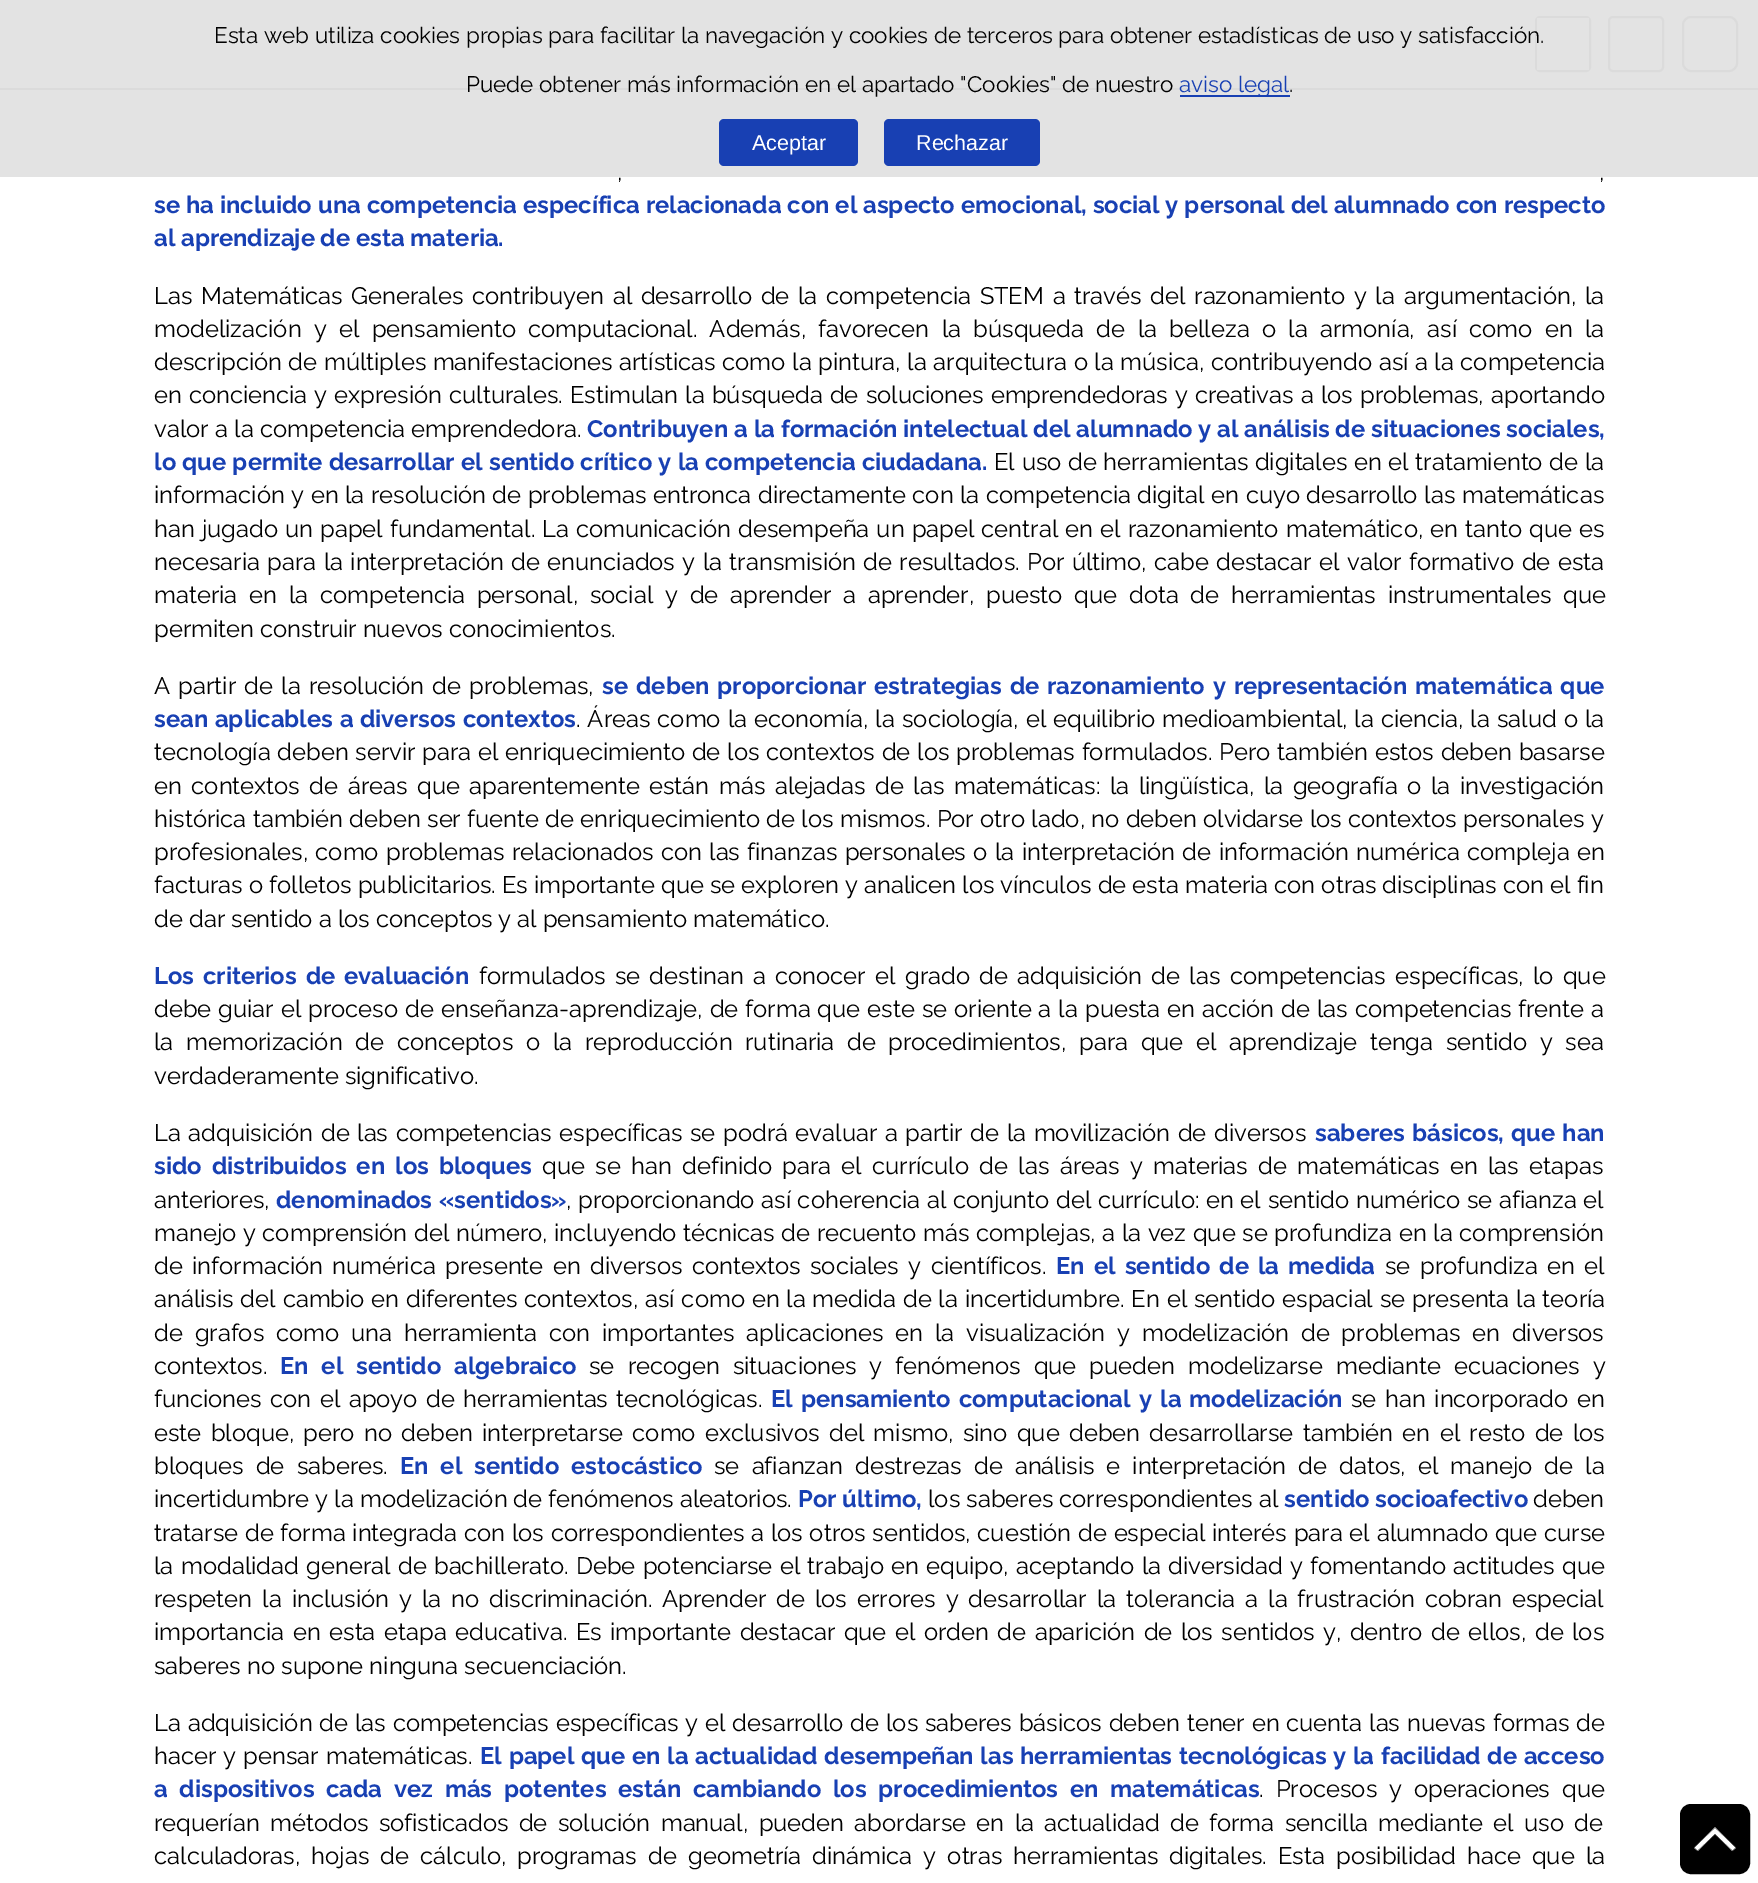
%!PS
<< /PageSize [1758 1883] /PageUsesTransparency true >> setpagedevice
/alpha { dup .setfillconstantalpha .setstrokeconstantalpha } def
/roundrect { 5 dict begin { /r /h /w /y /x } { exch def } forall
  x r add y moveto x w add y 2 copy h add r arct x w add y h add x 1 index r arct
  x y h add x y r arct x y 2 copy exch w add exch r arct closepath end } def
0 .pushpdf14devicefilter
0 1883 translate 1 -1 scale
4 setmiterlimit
1 setgray
0 0 1758 1883 rectfill
0 setgray
0 88 1758 2 rectfill
2 setlinewidth
1536 17 54 54 4 roundrect stroke
1 setgray
1537 18 52 52 rectfill
0 setgray
1609 17 54 54 4 roundrect stroke
1683 17 54 54 8 roundrect stroke
0.97 alpha
0.886 setgray
0 0 1758 177 rectfill
/Raleway-Regular [22.4 0 0 -22.4 0 0] selectfont
1 alpha
0 setgray
214 43 moveto (Esta web utiliza cookies propias para facilitar la navegación y cookies de terceros para obtener estadísticas de uso y satisfacción.) show
466 92 moveto (Puede obtener más información en el apartado "Cookies" de nuestro) show
0.094 0.251 0.702 setrgbcolor
1180 95 110 2 rectfill
1179 92 moveto (aviso legal) show
0 setgray
1289 92 moveto (.) show
0.094 0.251 0.702 setrgbcolor
719 119 139 47 5 roundrect fill
/LiberationSans-Regular [21.5 0 0 -21.5 0 0] selectfont
1 setgray
752 150 moveto (Aceptar) show
0.094 0.251 0.702 setrgbcolor
884 119 156 47 5 roundrect fill
1 setgray
916 150 moveto (Rechazar) show
/Raleway-Regular [23.8 0 0 -23.8 0 0] selectfont
0 setgray
617 180 moveto 1 0 32 (,) widthshow
1599 180 moveto 1 0 32 (,) widthshow
/Raleway-Bold [23.8 0 0 -23.8 0 0] selectfont
0.094 0.251 0.702 setrgbcolor
154 213 moveto 0.25 0 32 (se ha incluido una competencia específica relacionada con el aspecto emocional, social y personal del alumnado con respecto) widthshow
154 246 moveto (al aprendizaje de esta materia.) show
/Raleway-Regular [23.8 0 0 -23.8 0 0] selectfont
0 setgray
154 304 moveto 2.6 0 32 (Las Matemáticas Generales contribuyen al desarrollo de la competencia STEM a través del razonamiento y la argumentación, la) widthshow
154 337 moveto 6.25 0 32 (modelización y el pensamiento computacional. Además, favorecen la búsqueda de la belleza o la armonía, así como en la) widthshow
154 370 moveto 0.5 0 32 (descripción de múltiples manifestaciones artísticas como la pintura, la arquitectura o la música, contribuyendo así a la competencia) widthshow
154 403 moveto 1 0 32 (en conciencia y expresión culturales. Estimulan la búsqueda de soluciones emprendedoras y creativas a los problemas, aportando) widthshow
154 437 moveto 0.25 0 32 (valor a la competencia emprendedora.) widthshow
/Raleway-Bold [23.8 0 0 -23.8 0 0] selectfont
0.094 0.251 0.702 setrgbcolor
587 437 moveto 0.25 0 32 (Contribuyen a la formación intelectual del alumnado y al análisis de situaciones sociales,) widthshow
154 470 moveto 0.5 0 32 (lo que permite desarrollar el sentido crítico y la competencia ciudadana.) widthshow
/Raleway-Regular [23.8 0 0 -23.8 0 0] selectfont
0 setgray
994 470 moveto 0.5 0 32 (El uso de herramientas digitales en el tratamiento de la) widthshow
154 503 moveto 0.5 0 32 (información y en la resolución de problemas entronca directamente con la competencia digital en cuyo desarrollo las matemáticas) widthshow
154 537 moveto 1 0 32 (han jugado un papel fundamental. La comunicación desempeña un papel central en el razonamiento matemático, en tanto que es) widthshow
154 570 moveto 1.3 0 32 (necesaria para la interpretación de enunciados y la transmisión de resultados. Por último, cabe destacar el valor formativo de esta) widthshow
154 603 moveto 5.75 0 32 (materia en la competencia personal, social y de aprender a aprender, puesto que dota de herramientas instrumentales que) widthshow
154 637 moveto (permiten construir nuevos conocimientos.) show
154 694 moveto 2.25 0 32 (A partir de la resolución de problemas,) widthshow
/Raleway-Bold [23.8 0 0 -23.8 0 0] selectfont
0.094 0.251 0.702 setrgbcolor
602 694 moveto 2.25 0 32 (se deben proporcionar estrategias de razonamiento y representación matemática que) widthshow
154 727 moveto 1 0 32 (sean aplicables a diversos contextos) widthshow
/Raleway-Regular [23.8 0 0 -23.8 0 0] selectfont
0 setgray
576 727 moveto 0.9 0 32 (. Áreas como la economía, la sociología, el equilibrio medioambiental, la ciencia, la salud o la) widthshow
154 760 moveto 0.75 0 32 (tecnología deben servir para el enriquecimiento de los contextos de los problemas formulados. Pero también estos deben basarse) widthshow
154 794 moveto 3.4 0 32 (en contextos de áreas que aparentemente están más alejadas de las matemáticas: la lingüística, la geografía o la investigación) widthshow
154 827 moveto 0.25 0 32 (histórica también deben ser fuente de enriquecimiento de los mismos. Por otro lado, no deben olvidarse los contextos personales y) widthshow
154 860 moveto 1.25 0 32 (profesionales, como problemas relacionados con las finanzas personales o la interpretación de información numérica compleja en) widthshow
154 893 moveto (facturas o folletos publicitarios. Es importante que se exploren y analicen los vínculos de esta materia con otras disciplinas con el fin) show
154 927 moveto (de dar sentido a los conceptos y al pensamiento matemático.) show
/Raleway-Bold [23.8 0 0 -23.8 0 0] selectfont
0.094 0.251 0.702 setrgbcolor
154 984 moveto 3.25 0 32 (Los criterios de evaluación) widthshow
/Raleway-Regular [23.8 0 0 -23.8 0 0] selectfont
0 setgray
479 984 moveto 3.25 0 32 (formulados se destinan a conocer el grado de adquisición de las competencias específicas, lo que) widthshow
154 1017 moveto 0.9 0 32 (debe guiar el proceso de enseñanza-aprendizaje, de forma que este se oriente a la puesta en acción de las competencias frente a) widthshow
154 1050 moveto 6.6 0 32 (la memorización de conceptos o la reproducción rutinaria de procedimientos, para que el aprendizaje tenga sentido y sea) widthshow
154 1084 moveto (verdaderamente significativo.) show
154 1141 moveto 1.5 0 32 (La adquisición de las competencias específicas se podrá evaluar a partir de la movilización de diversos) widthshow
/Raleway-Bold [23.8 0 0 -23.8 0 0] selectfont
0.094 0.251 0.702 setrgbcolor
1315 1141 moveto 1.5 0 32 (saberes básicos, que han) widthshow
154 1174 moveto 4.25 0 32 (sido distribuidos en los bloques) widthshow
/Raleway-Regular [23.8 0 0 -23.8 0 0] selectfont
0 setgray
542 1174 moveto 4.25 0 32 (que se han definido para el currículo de las áreas y materias de matemáticas en las etapas) widthshow
154 1208 moveto (anteriores,) show
/Raleway-Bold [23.8 0 0 -23.8 0 0] selectfont
0.094 0.251 0.702 setrgbcolor
276 1208 moveto 1 0 32 (denominados «sentidos») widthshow
/Raleway-Regular [23.8 0 0 -23.8 0 0] selectfont
0 setgray
566 1208 moveto 0.6 0 32 (, proporcionando así coherencia al conjunto del currículo: en el sentido numérico se afianza el) widthshow
154 1241 moveto 0.6 0 32 (manejo y comprensión del número, incluyendo técnicas de recuento más complejas, a la vez que se profundiza en la comprensión) widthshow
154 1274 moveto 3.4 0 32 (de información numérica presente en diversos contextos sociales y científicos.) widthshow
/Raleway-Bold [23.8 0 0 -23.8 0 0] selectfont
0.094 0.251 0.702 setrgbcolor
1056 1274 moveto 3.4 0 32 (En el sentido de la medida) widthshow
/Raleway-Regular [23.8 0 0 -23.8 0 0] selectfont
0 setgray
1385 1274 moveto 3.4 0 32 (se profundiza en el) widthshow
154 1307 moveto 0.75 0 32 (análisis del cambio en diferentes contextos, así como en la medida de la incertidumbre. En el sentido espacial se presenta la teoría) widthshow
154 1341 moveto 5.75 0 32 (de grafos como una herramienta con importantes aplicaciones en la visualización y modelización de problemas en diversos) widthshow
154 1374 moveto (contextos.) show
/Raleway-Bold [23.8 0 0 -23.8 0 0] selectfont
0.094 0.251 0.702 setrgbcolor
280 1374 moveto 7 0 32 (En el sentido algebraico) widthshow
/Raleway-Regular [23.8 0 0 -23.8 0 0] selectfont
0 setgray
589 1374 moveto 7 0 32 (se recogen situaciones y fenómenos que pueden modelizarse mediante ecuaciones y) widthshow
154 1407 moveto 2.4 0 32 (funciones con el apoyo de herramientas tecnológicas.) widthshow
/Raleway-Bold [23.8 0 0 -23.8 0 0] selectfont
0.094 0.251 0.702 setrgbcolor
771 1407 moveto 2.4 0 32 (El pensamiento computacional y la modelización) widthshow
/Raleway-Regular [23.8 0 0 -23.8 0 0] selectfont
0 setgray
1351 1407 moveto 2.5 0 32 (se han incorporado en) widthshow
154 1441 moveto 3.25 0 32 (este bloque, pero no deben interpretarse como exclusivos del mismo, sino que deben desarrollarse también en el resto de los) widthshow
154 1474 moveto 6 0 32 (bloques de saberes.) widthshow
/Raleway-Bold [23.8 0 0 -23.8 0 0] selectfont
0.094 0.251 0.702 setrgbcolor
400 1474 moveto 6 0 32 (En el sentido estocástico) widthshow
/Raleway-Regular [23.8 0 0 -23.8 0 0] selectfont
0 setgray
714 1474 moveto 6 0 32 (se afianzan destrezas de análisis e interpretación de datos, el manejo de la) widthshow
154 1507 moveto (incertidumbre y la modelización de fenómenos aleatorios.) show
/Raleway-Bold [23.8 0 0 -23.8 0 0] selectfont
0.094 0.251 0.702 setrgbcolor
798 1507 moveto (Por último,) show
/Raleway-Regular [23.8 0 0 -23.8 0 0] selectfont
0 setgray
928 1507 moveto (los saberes correspondientes al) show
/Raleway-Bold [23.8 0 0 -23.8 0 0] selectfont
0.094 0.251 0.702 setrgbcolor
1284 1507 moveto (sentido socioafectivo) show
/Raleway-Regular [23.8 0 0 -23.8 0 0] selectfont
0 setgray
1533 1507 moveto (deben) show
154 1541 moveto 0.7 0 32 (tratarse de forma integrada con los correspondientes a los otros sentidos, cuestión de especial interés para el alumnado que curse) widthshow
154 1574 moveto 1.25 0 32 (la modalidad general de bachillerato. Debe potenciarse el trabajo en equipo, aceptando la diversidad y fomentando actitudes que) widthshow
154 1607 moveto 3.9 0 32 (respeten la inclusión y la no discriminación. Aprender de los errores y desarrollar la tolerancia a la frustración cobran especial) widthshow
154 1640 moveto 2.4 0 32 (importancia en esta etapa educativa. Es importante destacar que el orden de aparición de los sentidos y, dentro de ellos, de los) widthshow
154 1674 moveto (saberes no supone ninguna secuenciación.) show
154 1731 moveto 0.75 0 32 (La adquisición de las competencias específicas y el desarrollo de los saberes básicos deben tener en cuenta las nuevas formas de) widthshow
154 1764 moveto 1 0 32 (hacer y pensar matemáticas.) widthshow
/Raleway-Bold [23.8 0 0 -23.8 0 0] selectfont
0.094 0.251 0.702 setrgbcolor
480 1764 moveto 1 0 32 (El papel que en la actualidad desempeñan las herramientas tecnológicas y la facilidad de acceso) widthshow
154 1797 moveto 6 0 32 (a dispositivos cada vez más potentes están cambiando los procedimientos en matemáticas) widthshow
/Raleway-Regular [23.8 0 0 -23.8 0 0] selectfont
0 setgray
1259 1797 moveto 6 0 32 (. Procesos y operaciones que) widthshow
154 1831 moveto 4.25 0 32 (requerían métodos sofisticados de solución manual, pueden abordarse en la actualidad de forma sencilla mediante el uso de) widthshow
154 1864 moveto 5.1 0 32 (calculadoras, hojas de cálculo, programas de geometría dinámica y otras herramientas digitales. Esta posibilidad hace que la) widthshow
1681.75 1805.75 66.5 66.5 9.25 roundrect gsave fill grestore
3.5 setlinewidth
stroke
1 setgray
newpath 1736 1848 moveto 1732 1851 lineto 1715 1834 lineto 1698 1851 lineto 1694 1848 lineto 1715 1827 lineto closepath fill
0.169 setgray
0.1 setlinewidth
newpath 1736 1847.5 moveto 1732.5 1851 lineto 1715 1834.5 lineto 1697.5 1851 lineto 1694 1847.5 lineto 1715 1827.5 lineto closepath stroke
.poppdf14devicefilter showpage
